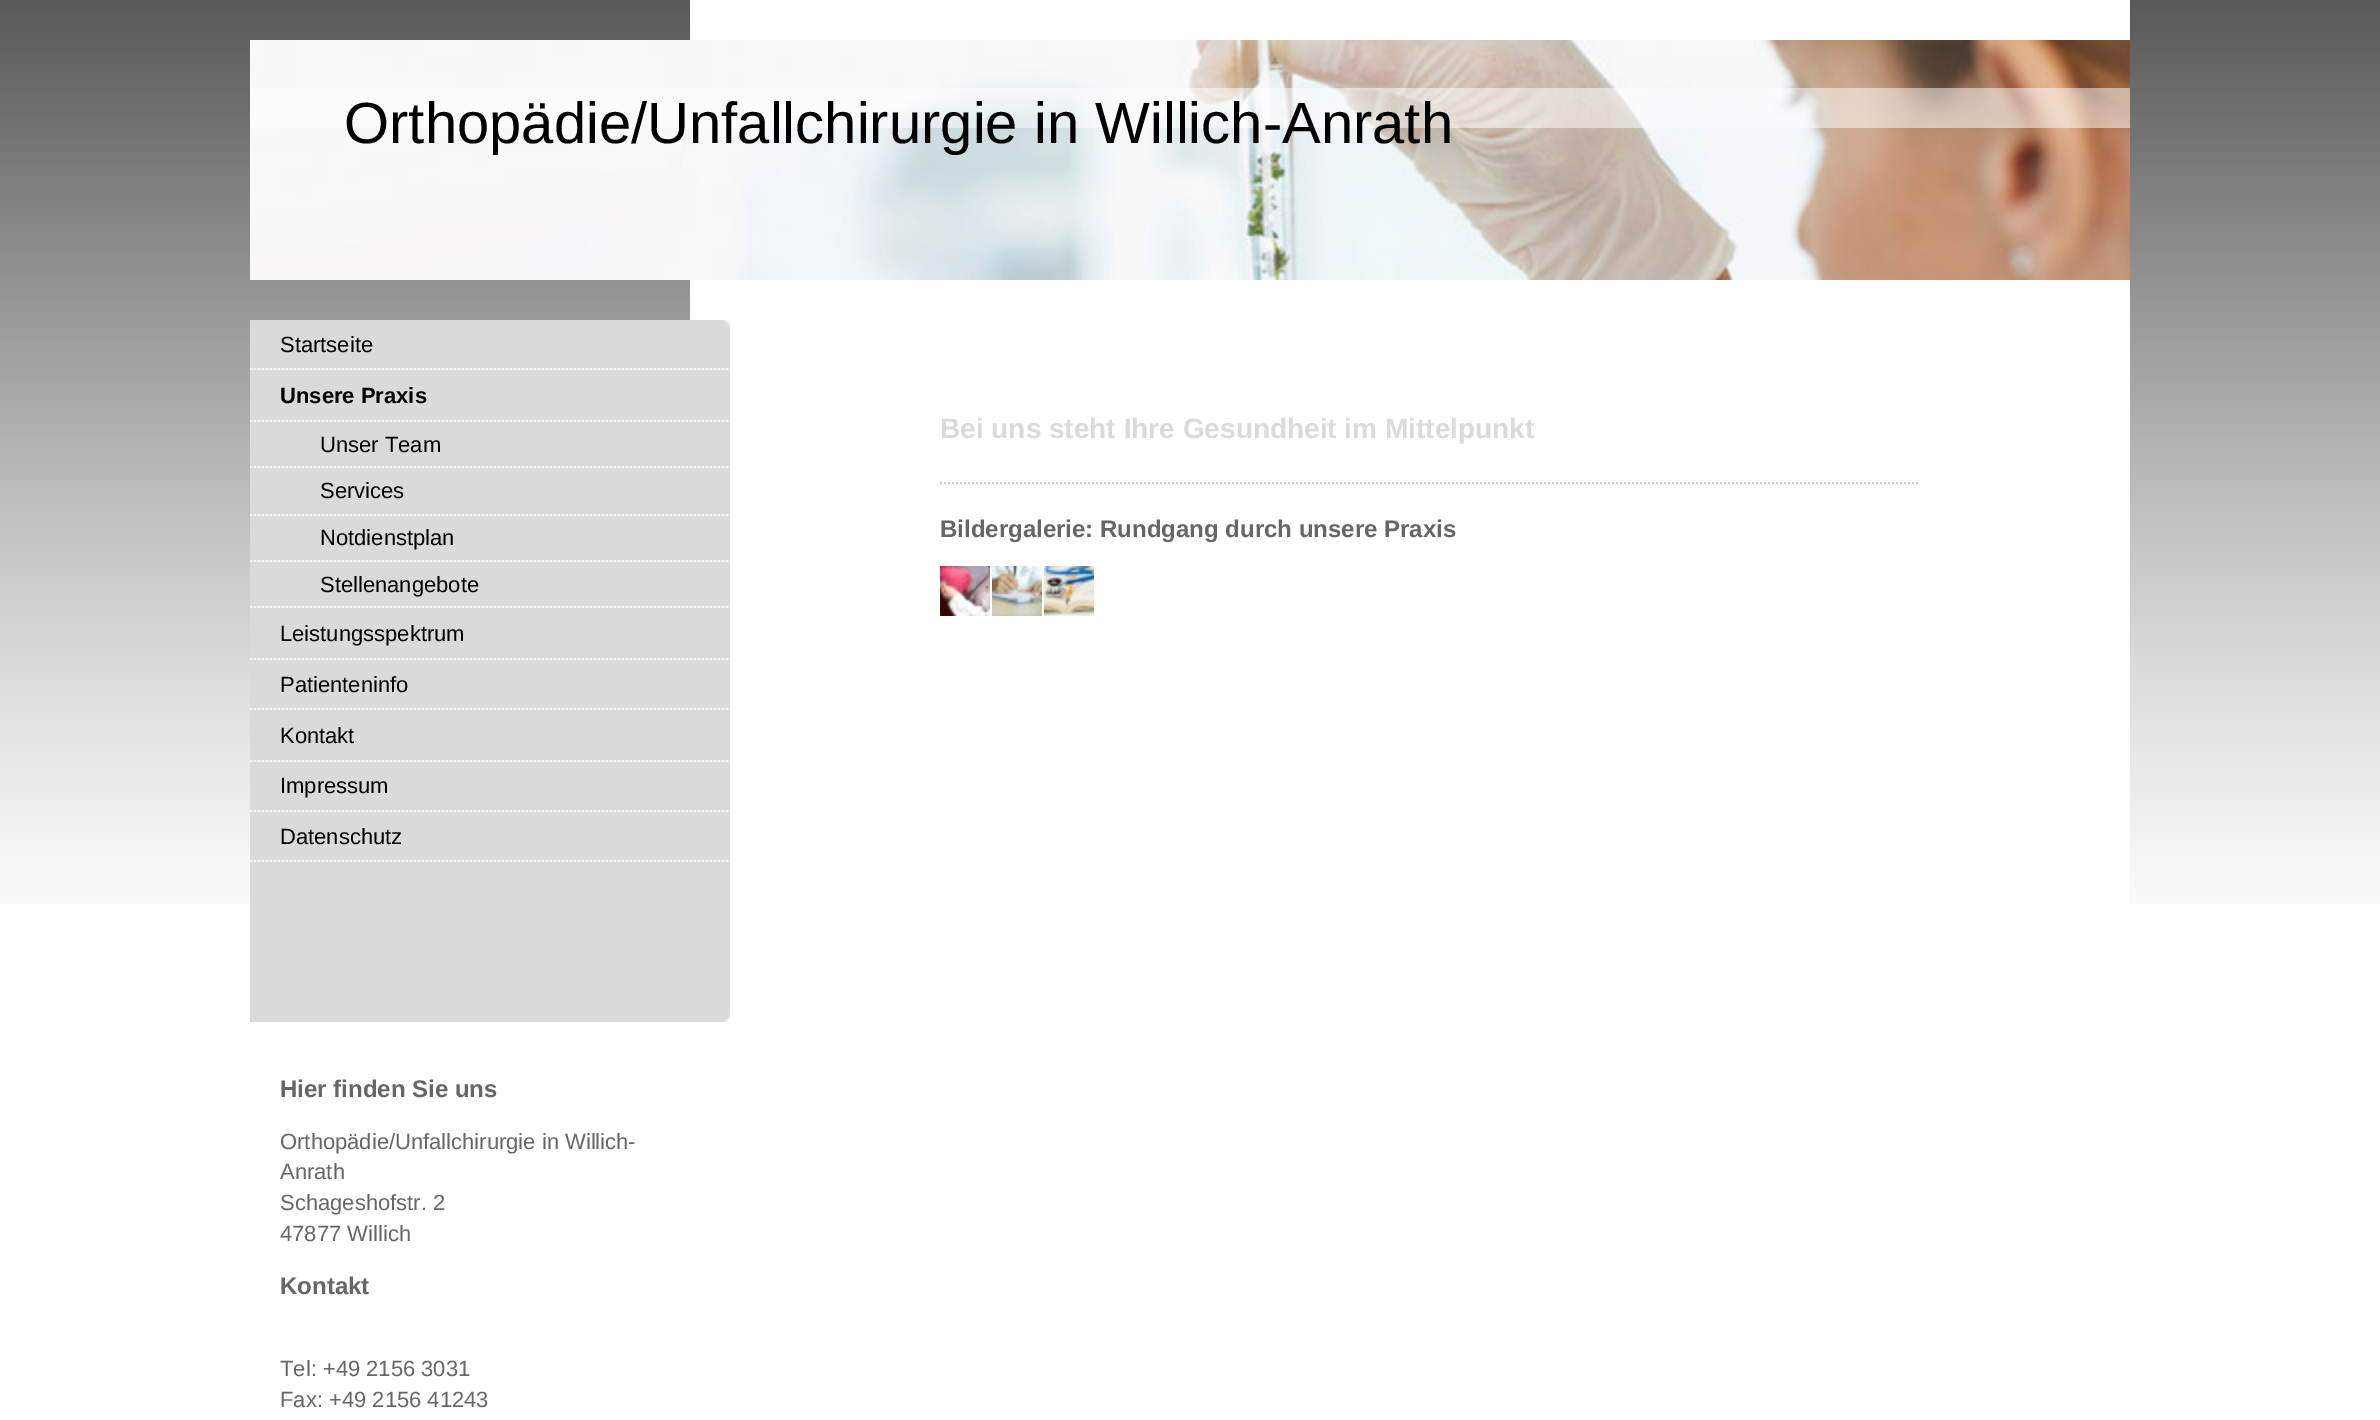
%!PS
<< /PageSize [2380 1420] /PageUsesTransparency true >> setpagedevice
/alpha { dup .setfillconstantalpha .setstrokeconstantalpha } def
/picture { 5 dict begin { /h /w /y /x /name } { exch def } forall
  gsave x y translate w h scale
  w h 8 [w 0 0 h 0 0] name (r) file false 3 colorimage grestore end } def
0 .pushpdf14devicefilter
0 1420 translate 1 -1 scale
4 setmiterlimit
1 setgray
0 0 2380 1420 rectfill
(img1.rgb) 0 0 2380 904 picture
690 0 1440 904 rectfill
(img2.rgb) 250 40 1880 240 picture
0.5 alpha
250 88 1880 40 rectfill
/LiberationSans-Regular [58 0 0 -58 0 0] selectfont
1 alpha
0 setgray
344 143 moveto (Orthopädie/Unfallchirurgie in Willich-Anrath) show
0.855 setgray
250 320 480 702 rectfill
(img3.rgb) 723 1015 7 7 picture
(img4.rgb) 723 320 7 7 picture
(img5.rgb) 250 368 480 2 picture
/LiberationSans-Regular [22 0 0 -22 0 0] selectfont
0 setgray
280 352 moveto (Startseite) show
(img5.rgb) 250 420 480 2 picture
/LiberationSans-Bold [22 0 0 -22 0 0] selectfont
280 403 moveto (Unsere Praxis) show
(img5.rgb) 250 466 480 2 picture
/LiberationSans-Regular [22 0 0 -22 0 0] selectfont
320 452 moveto (Unser Team) show
(img5.rgb) 250 514 480 2 picture
320 498 moveto (Services) show
(img5.rgb) 250 560 480 2 picture
320 545 moveto (Notdienstplan) show
(img5.rgb) 250 606 480 2 picture
320 592 moveto (Stellenangebote) show
(img5.rgb) 250 658 480 2 picture
280 641 moveto (Leistungsspektrum) show
(img5.rgb) 250 708 480 2 picture
280 692 moveto (Patienteninfo) show
(img5.rgb) 250 760 480 2 picture
280 743 moveto (Kontakt) show
(img5.rgb) 250 810 480 2 picture
280 793 moveto (Impressum) show
(img5.rgb) 250 860 480 2 picture
280 844 moveto (Datenschutz) show
/LiberationSans-Bold [24 0 0 -24 0 0] selectfont
0.4 setgray
280 1097 moveto (Hier finden Sie uns) show
/LiberationSans-Regular [22 0 0 -22 0 0] selectfont
280 1149 moveto (Orthopädie/Unfallchirurgie in Willich-) show
280 1179 moveto (Anrath) show
280 1210 moveto (Schageshofstr. 2) show
280 1241 moveto (47877 Willich) show
/LiberationSans-Bold [24 0 0 -24 0 0] selectfont
280 1294 moveto (Kontakt) show
/LiberationSans-Regular [22 0 0 -22 0 0] selectfont
280 1376 moveto (Tel: +49 2156 3031) show
280 1407 moveto (Fax: +49 2156 41243) show
/LiberationSans-Bold [28 0 0 -28 0 0] selectfont
0.855 setgray
940 438 moveto (Bei uns steht Ihre Gesundheit im Mittelpunkt) show
0.8 setgray
2 setlinewidth
[2 2] 0 setdash
newpath 940 483 moveto 1920 483 lineto stroke
/LiberationSans-Bold [24 0 0 -24 0 0] selectfont
0.4 setgray
940 537 moveto (Bildergalerie: Rundgang durch unsere Praxis) show
(img6.rgb) 940 566 50 50 picture
(img7.rgb) 992 566 50 50 picture
(img8.rgb) 1044 566 50 50 picture
.poppdf14devicefilter showpage
